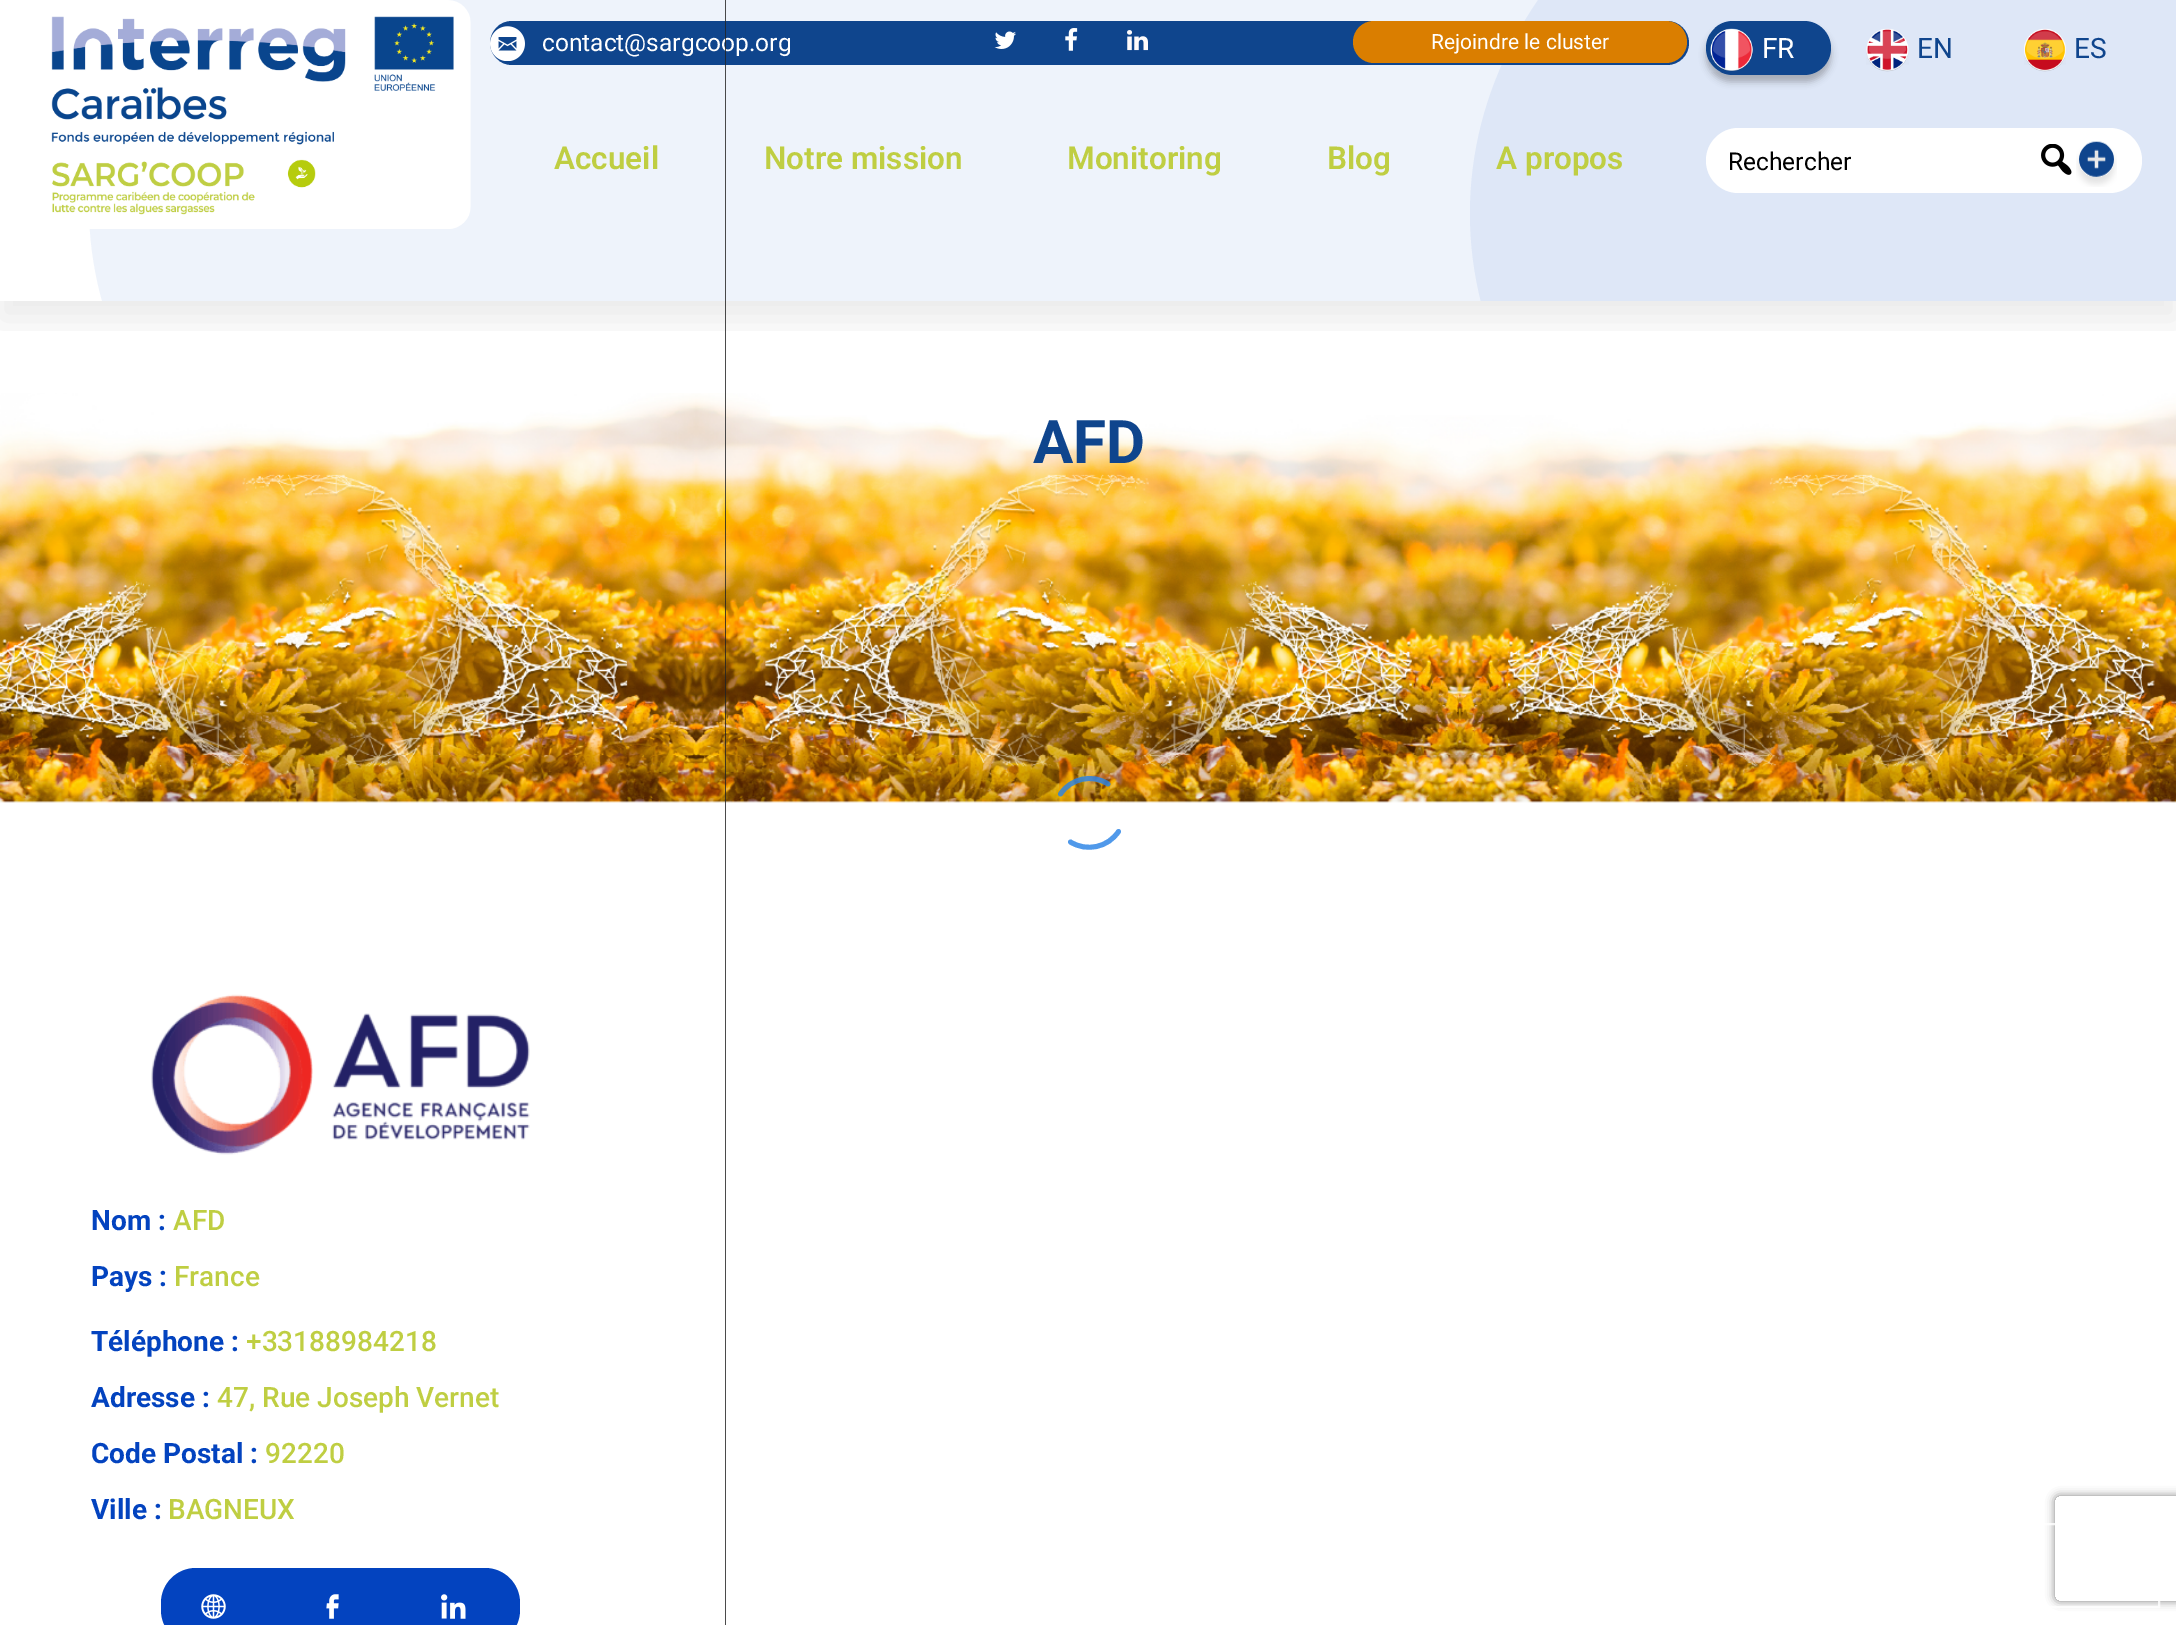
%!PS
<< /PageSize [2176 1625] /PageUsesTransparency true >> setpagedevice
/alpha { dup .setfillconstantalpha .setstrokeconstantalpha } def
/roundrect { 5 dict begin { /r /h /w /y /x } { exch def } forall
  x r add y moveto x w add y 2 copy h add r arct x w add y h add x 1 index r arct
  x y h add x y r arct x y 2 copy exch w add exch r arct closepath end } def
/shadow { 12 dict begin { /a /b /q /h /w /y /x } { exch def } forall gsave /was 0 def
  9 -2 -9 { dup b mul 4 div /e exch def 1 sub .425 mul 2.718 exch exp 1 add a .99 .min exch div /now exch def
    1 1 now sub 1 was sub div sub alpha /was now def
    w h .min e 2 mul add 0 gt { x e sub y e sub w e 2 mul add h e 2 mul add
      q e add b .6 mul add w h .min 2 div e add .min 0 .max roundrect fill } if } for grestore end } def
/picture { 5 dict begin { /h /w /y /x /name } { exch def } forall
  gsave x y translate w h scale
  w h 8 [w 0 0 h 0 0] name (r) file false 3 colorimage grestore end } def
0 .pushpdf14devicefilter
0 1625 translate 1 -1 scale
4 setmiterlimit
1 setgray
0 0 2176 1625 rectfill
gsave
89 0 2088 301 rectclip
0.933 0.953 0.984 setrgbcolor
newpath 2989 -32 moveto 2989 213 951 649 645 649 curveto 338 649 89 450 89 205 curveto 89 -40 338 -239 645 -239 curveto 951 -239 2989 -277 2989 -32 curveto closepath fill
grestore
gsave
1470 0 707 301 rectclip
0.871 0.906 0.969 setrgbcolor
newpath 2025.5 -231 moveto 2332.5 -231 2581 -32 2581 213.5 curveto 2581 459 2332.5 658 2025.5 658 curveto 1718.5 658 1470 459 1470 213.5 curveto 1470 -32 1718.5 -231 2025.5 -231 curveto closepath fill
grestore
0.059 0.271 0.553 setrgbcolor
490 21 1199 44 22 roundrect fill
/Roboto-Regular [24.5 0 0 -24.5 0 0] selectfont
1 setgray
542 51 moveto (contact@sargcoop.org) show
(img2.rgb) 490 26 35 35 picture
(img3.rgb) 994 31 22 18 picture
(img4.rgb) 1065 28 13 23 picture
(img5.rgb) 1127 30 21 21 picture
0.855 0.494 0 setrgbcolor
1353 21 334 42 21 roundrect fill
gsave
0 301 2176 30 rectclip
0 setgray
0 82 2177 237 0 17.5 0.08 shadow
grestore
(img11.rgb) 0 393 2176 410 picture
0.82 alpha
0.137 setgray
725 0 1 1625 rectfill
0.161 0.51 0.898 setrgbcolor
4.9 setlinewidth
1 setlinecap
newpath 1060.5 794 moveto 1070.5 778.5 1092.5 773.5 1108 784 curveto 1118.5 831.5 moveto 1108 847.5 1086.5 852 1070.5 842 curveto stroke
gsave
newpath 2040 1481 moveto 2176 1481 lineto 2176 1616 lineto 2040 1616 lineto closepath 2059 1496 moveto 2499 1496 lineto 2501 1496 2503 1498 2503 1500 curveto 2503 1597 lineto 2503 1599 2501 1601 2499 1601 curveto 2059 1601 lineto 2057 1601 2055 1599 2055 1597 curveto 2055 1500 lineto 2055 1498 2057 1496 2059 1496 curveto closepath eoclip newpath
1 alpha
0.502 setgray
2055 1496 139 105 4 4.5 1 shadow
grestore
1 setgray
2 setlinewidth
0 setlinecap
1888 1524 271 83 rectstroke
1 alpha
(img1.rgb) 51 0 420 229 picture
/Roboto-Regular [21 0 0 -21 0 0] selectfont
1431 49 moveto (Rejoindre le cluster) show
/Roboto-SemiBold [31.5 0 0 -31.5 0 0] selectfont
0.749 0.808 0.259 setrgbcolor
554 169 moveto (Accueil) show
764 169 moveto (Notre mission) show
1067 169 moveto (Monitoring) show
1327 169 moveto (Blog) show
1496 169 moveto (A propos) show
0 setgray
1706 28 125 54 27 3.5 0.25 shadow
0.059 0.271 0.553 setrgbcolor
1706 21 125 54 27 roundrect fill
(img6.rgb) 1710 28 43 44 picture
/Roboto-Regular [28 0 0 -28 0 0] selectfont
1 setgray
1762 58 moveto (FR) show
(img7.rgb) 1866 28 43 44 picture
0.059 0.271 0.553 setrgbcolor
1917 58 moveto (EN) show
(img8.rgb) 2024 28 42 44 picture
2074 58 moveto (ES) show
1 setgray
1706 128 436 65 32.5 roundrect fill
/Roboto-Regular [24.5 0 0 -24.5 0 0] selectfont
0 setgray
1728 170 moveto (Rechercher) show
(img9.rgb) 2041 144 31 31 picture
(img10.rgb) 2076 141 41 46 picture
/Roboto-Bold [60 0 0 -60 0 0] selectfont
0.059 0.271 0.553 setrgbcolor
1033 463 moveto (AFD) show
(img12.rgb) 151 994 379 161 picture
/Roboto-Bold [28 0 0 -28 0 0] selectfont
0.012 0.263 0.749 setrgbcolor
91 1230 moveto (Nom :) show
/Roboto-Medium [28 0 0 -28 0 0] selectfont
0.749 0.808 0.259 setrgbcolor
173 1230 moveto (AFD) show
/Roboto-Bold [28 0 0 -28 0 0] selectfont
0.012 0.263 0.749 setrgbcolor
91 1286 moveto (Pays :) show
/Roboto-Medium [28 0 0 -28 0 0] selectfont
0.749 0.808 0.259 setrgbcolor
174 1286 moveto (France) show
/Roboto-Bold [28 0 0 -28 0 0] selectfont
0.012 0.263 0.749 setrgbcolor
91 1351 moveto (Téléphone :) show
/Roboto-Medium [28 0 0 -28 0 0] selectfont
0.749 0.808 0.259 setrgbcolor
246 1351 moveto (+33188984218) show
/Roboto-Bold [28 0 0 -28 0 0] selectfont
0.012 0.263 0.749 setrgbcolor
91 1407 moveto (Adresse :) show
/Roboto-Medium [28 0 0 -28 0 0] selectfont
0.749 0.808 0.259 setrgbcolor
217 1407 moveto (47, Rue Joseph Vernet) show
/Roboto-Bold [28 0 0 -28 0 0] selectfont
0.012 0.263 0.749 setrgbcolor
91 1463 moveto (Code Postal :) show
/Roboto-Medium [28 0 0 -28 0 0] selectfont
0.749 0.808 0.259 setrgbcolor
265 1463 moveto (92220) show
/Roboto-Bold [28 0 0 -28 0 0] selectfont
0.012 0.263 0.749 setrgbcolor
91 1519 moveto (Ville :) show
/Roboto-Medium [28 0 0 -28 0 0] selectfont
0.749 0.808 0.259 setrgbcolor
168 1519 moveto (BAGNEUX) show
0.012 0.263 0.749 setrgbcolor
161 1568 359 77 35 roundrect fill
(img13.rgb) 201 1594 25 25 picture
(img14.rgb) 326 1594 13 25 picture
(img15.rgb) 441 1594 25 25 picture
.poppdf14devicefilter showpage
